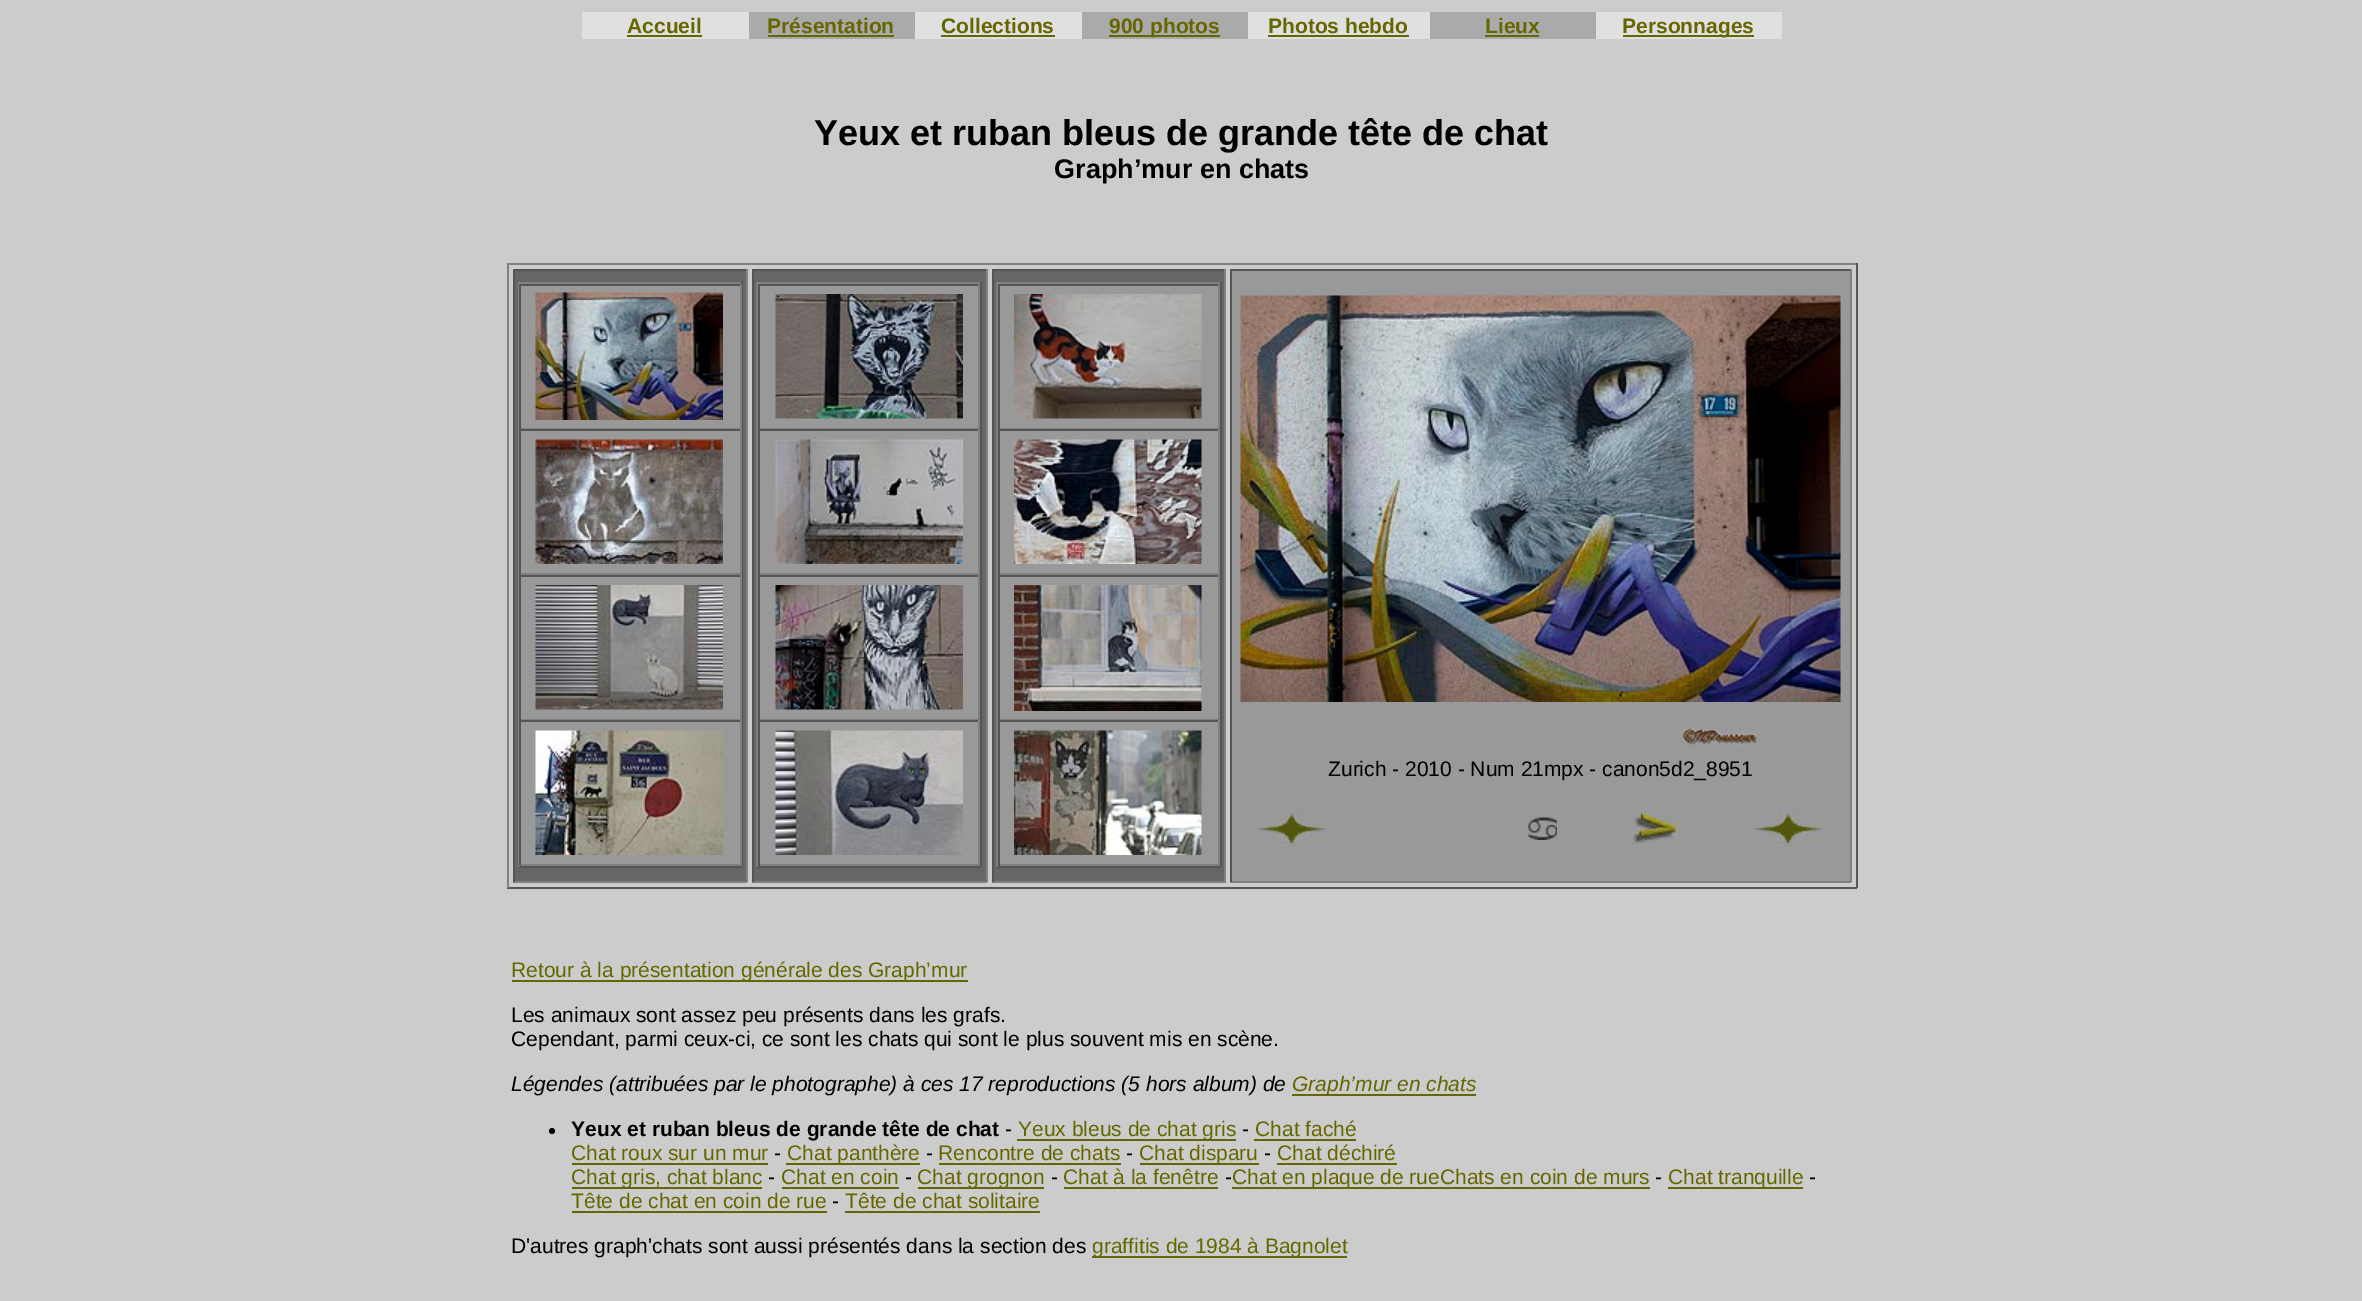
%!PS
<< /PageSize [2362 1301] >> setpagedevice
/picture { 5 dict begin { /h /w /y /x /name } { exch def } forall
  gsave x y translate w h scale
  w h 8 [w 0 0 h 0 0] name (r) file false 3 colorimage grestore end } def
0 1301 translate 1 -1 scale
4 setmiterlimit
0.8 setgray
0 0 2362 1301 rectfill
0.878 setgray
582 12 167 27 rectfill
/LiberationSans-Bold [21 0 0 -21 0 0] selectfont
0.4 0.4 0 setrgbcolor
627 33 moveto (Accueil) show
627 35 75 2 rectfill
0.667 setgray
749 12 166 27 rectfill
0.4 0.4 0 setrgbcolor
767 33 moveto (Présentation) show
768 35 126 2 rectfill
0.878 setgray
915 12 167 27 rectfill
0.4 0.4 0 setrgbcolor
941 33 moveto (Collections) show
941 35 114 2 rectfill
0.667 setgray
1082 12 166 27 rectfill
0.4 0.4 0 setrgbcolor
1109 35 111 2 rectfill
1109 33 moveto (900 photos) show
0.878 setgray
1248 12 182 27 rectfill
0.4 0.4 0 setrgbcolor
1268 33 moveto (Photos hebdo) show
1268 35 141 2 rectfill
0.667 setgray
1430 12 166 27 rectfill
0.4 0.4 0 setrgbcolor
1485 33 moveto (Lieux) show
1485 35 54 2 rectfill
0.878 setgray
1596 12 186 27 rectfill
0.4 0.4 0 setrgbcolor
1623 35 131 2 rectfill
1622 33 moveto (Personnages) show
/LiberationSans-Bold [36 0 0 -36 0 0] selectfont
0 setgray
814 145 moveto (Yeux et ruban bleus de grande tête de chat) show
/LiberationSans-Bold [27 0 0 -27 0 0] selectfont
1054 178 moveto (Graph’mur en chats) show
0.502 setgray
507 263 1350 2 rectfill
0.333 setgray
1856 263 2 625 rectfill
507 887 1350 2 rectfill
0.502 setgray
507 263 2 625 rectfill
0.4 setgray
515 271 231 610 rectfill
0.333 setgray
513 269 234 2 rectfill
0.502 setgray
746 269 2 613 rectfill
513 881 234 2 rectfill
0.333 setgray
513 269 2 613 rectfill
0.502 setgray
518 282 225 2 rectfill
0.333 setgray
741 282 2 585 rectfill
518 866 225 2 rectfill
0.502 setgray
518 282 2 585 rectfill
0.6 setgray
521 286 219 142 rectfill
0.333 setgray
519 284 222 2 rectfill
0.502 setgray
740 284 2 145 rectfill
519 428 222 1 rectfill
0.333 setgray
519 284 2 145 rectfill
(img1.rgb) 535 292 188 128 picture
0.6 setgray
521 431 219 142 rectfill
0.333 setgray
519 429 222 2 rectfill
0.502 setgray
740 429 2 146 rectfill
519 573 222 2 rectfill
0.333 setgray
519 429 2 146 rectfill
(img2.rgb) 535 439 188 125 picture
0.6 setgray
521 577 219 142 rectfill
0.333 setgray
519 575 222 2 rectfill
0.502 setgray
740 575 2 145 rectfill
519 719 222 1 rectfill
0.333 setgray
519 575 2 145 rectfill
(img3.rgb) 535 585 188 125 picture
0.6 setgray
521 722 219 142 rectfill
0.333 setgray
519 720 222 2 rectfill
0.502 setgray
740 720 2 146 rectfill
519 864 222 2 rectfill
0.333 setgray
519 720 2 146 rectfill
(img4.rgb) 535 730 188 125 picture
0.4 setgray
754 271 232 610 rectfill
0.333 setgray
752 269 235 2 rectfill
0.502 setgray
986 269 2 613 rectfill
752 881 235 2 rectfill
0.333 setgray
752 269 2 613 rectfill
0.502 setgray
756 282 225 2 rectfill
0.333 setgray
980 282 2 585 rectfill
756 866 225 2 rectfill
0.502 setgray
756 282 2 585 rectfill
0.6 setgray
760 286 218 142 rectfill
0.333 setgray
758 284 222 2 rectfill
0.502 setgray
978 284 2 145 rectfill
758 428 222 1 rectfill
0.333 setgray
758 284 2 145 rectfill
(img5.rgb) 775 294 188 125 picture
0.6 setgray
760 431 218 142 rectfill
0.333 setgray
758 429 222 2 rectfill
0.502 setgray
978 429 2 146 rectfill
758 573 222 2 rectfill
0.333 setgray
758 429 2 146 rectfill
(img6.rgb) 775 439 188 125 picture
0.6 setgray
760 577 218 142 rectfill
0.333 setgray
758 575 222 2 rectfill
0.502 setgray
978 575 2 145 rectfill
758 719 222 1 rectfill
0.333 setgray
758 575 2 145 rectfill
(img7.rgb) 775 585 188 125 picture
0.6 setgray
760 722 218 142 rectfill
0.333 setgray
758 720 222 2 rectfill
0.502 setgray
978 720 2 146 rectfill
758 864 222 2 rectfill
0.333 setgray
758 720 2 146 rectfill
(img8.rgb) 775 730 188 125 picture
0.4 setgray
994 271 230 610 rectfill
0.333 setgray
992 269 234 2 rectfill
0.502 setgray
1224 269 2 613 rectfill
992 881 234 2 rectfill
0.333 setgray
992 269 2 613 rectfill
0.502 setgray
996 282 225 2 rectfill
0.333 setgray
1220 282 2 585 rectfill
996 866 225 2 rectfill
0.502 setgray
996 282 2 585 rectfill
0.6 setgray
1000 286 218 142 rectfill
0.333 setgray
998 284 222 2 rectfill
0.502 setgray
1218 284 2 145 rectfill
998 428 222 1 rectfill
0.333 setgray
998 284 2 145 rectfill
(img9.rgb) 1014 294 188 125 picture
0.6 setgray
1000 431 218 142 rectfill
0.333 setgray
998 429 222 2 rectfill
0.502 setgray
1218 429 2 146 rectfill
998 573 222 2 rectfill
0.333 setgray
998 429 2 146 rectfill
(img10.rgb) 1014 439 188 125 picture
0.6 setgray
1000 577 218 142 rectfill
0.333 setgray
998 575 222 2 rectfill
0.502 setgray
1218 575 2 145 rectfill
998 719 222 1 rectfill
0.333 setgray
998 575 2 145 rectfill
(img11.rgb) 1014 585 188 126 picture
0.6 setgray
1000 722 218 142 rectfill
0.333 setgray
998 720 222 2 rectfill
0.502 setgray
1218 720 2 146 rectfill
998 864 222 2 rectfill
0.333 setgray
998 720 2 146 rectfill
(img12.rgb) 1014 730 188 125 picture
0.6 setgray
1232 271 618 610 rectfill
0.333 setgray
1230 269 621 2 rectfill
0.502 setgray
1850 269 2 613 rectfill
1230 881 621 2 rectfill
0.333 setgray
1230 269 2 613 rectfill
(img13.rgb) 1240 295 601 407 picture
(img14.rgb) 1683 729 75 17 picture
/LiberationSans-Regular [21 0 0 -21 0 0] selectfont
0 setgray
1328 776 moveto (Zurich - 2010 - Num 21mpx - canon5d2_8951) show
(img15.rgb) 1254 812 72 34 picture
(img16.rgb) 1528 817 29 23 picture
(img17.rgb) 1632 811 47 35 picture
(img18.rgb) 1750 812 73 34 picture
0.4 0.4 0 setrgbcolor
512 980 456 2 rectfill
511 977 moveto (Retour à la présentation générale des Graph’mur) show
0 setgray
511 1022 moveto (Les animaux sont assez peu présents dans les grafs.) show
511 1046 moveto (Cependant, parmi ceux-ci, ce sont les chats qui sont le plus souvent mis en scène.) show
/LiberationSans-Italic [21 0 0 -21 0 0] selectfont
511 1091 moveto (Légendes \(attribuées par le photographe\) à ces 17 reproductions \(5 hors album\) de) show
0.4 0.4 0 setrgbcolor
1292 1094 184 2 rectfill
1292 1091 moveto (Graph’mur en chats) show
0 setgray
newpath 552 1131 3 0 360 arc closepath fill
/LiberationSans-Bold [21 0 0 -21 0 0] selectfont
571 1136 moveto (Yeux et ruban bleus de grande tête de chat) show
/LiberationSans-Regular [21 0 0 -21 0 0] selectfont
1005 1136 moveto (-) show
0.4 0.4 0 setrgbcolor
1017 1139 219 2 rectfill
1018 1136 moveto (Yeux bleus de chat gris) show
0 setgray
1242 1136 moveto (-) show
0.4 0.4 0 setrgbcolor
1255 1136 moveto (Chat faché) show
1254 1139 102 2 rectfill
571 1160 moveto (Chat roux sur un mur) show
572 1163 196 2 rectfill
0 setgray
774 1160 moveto (-) show
0.4 0.4 0 setrgbcolor
786 1163 134 2 rectfill
787 1160 moveto (Chat panthère) show
0 setgray
926 1160 moveto (-) show
0.4 0.4 0 setrgbcolor
938 1160 moveto (Rencontre de chats) show
939 1163 182 2 rectfill
0 setgray
1126 1160 moveto (-) show
0.4 0.4 0 setrgbcolor
1140 1163 119 2 rectfill
1139 1160 moveto (Chat disparu) show
0 setgray
1264 1160 moveto (-) show
0.4 0.4 0 setrgbcolor
1277 1160 moveto (Chat déchiré) show
1277 1163 120 2 rectfill
572 1187 190 2 rectfill
571 1184 moveto (Chat gris, chat blanc) show
0 setgray
768 1184 moveto (-) show
0.4 0.4 0 setrgbcolor
781 1184 moveto (Chat en coin) show
782 1187 117 2 rectfill
0 setgray
905 1184 moveto (-) show
0.4 0.4 0 setrgbcolor
918 1187 126 2 rectfill
917 1184 moveto (Chat grognon) show
0 setgray
1051 1184 moveto (-) show
0.4 0.4 0 setrgbcolor
1063 1184 moveto (Chat à la fenêtre) show
1064 1187 154 2 rectfill
0 setgray
1225 1184 moveto (-) show
0.4 0.4 0 setrgbcolor
1232 1187 418 2 rectfill
1232 1184 moveto (Chat en plaque de rueChats en coin de murs) show
0 setgray
1655 1184 moveto (-) show
0.4 0.4 0 setrgbcolor
1668 1187 135 2 rectfill
1668 1184 moveto (Chat tranquille) show
0 setgray
1809 1184 moveto (-) show
0.4 0.4 0 setrgbcolor
571 1208 moveto (Tête de chat en coin de rue) show
572 1211 255 2 rectfill
0 setgray
832 1208 moveto (-) show
0.4 0.4 0 setrgbcolor
845 1208 moveto (Tête de chat solitaire) show
845 1211 195 2 rectfill
0 setgray
511 1253 moveto (D'autres graph'chats sont aussi présentés dans la section des) show
0.4 0.4 0 setrgbcolor
1092 1256 255 2 rectfill
1092 1253 moveto (graffitis de 1984 à Bagnolet) show
showpage
